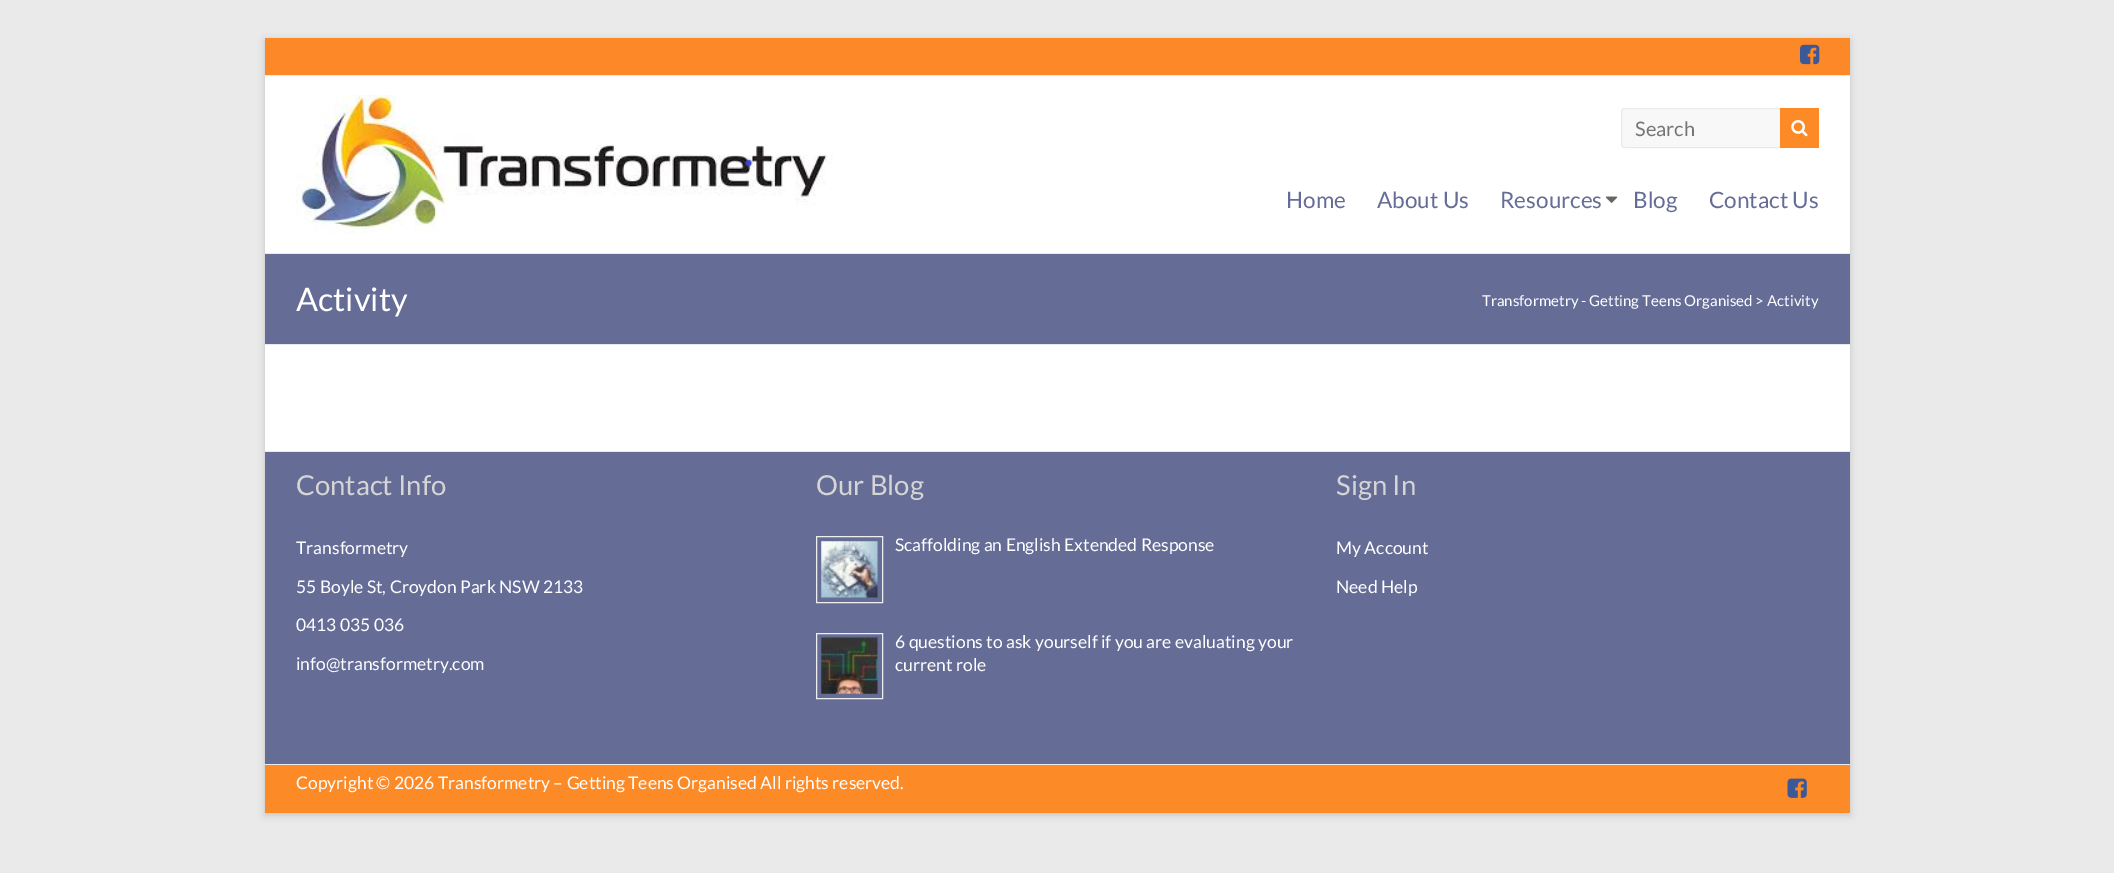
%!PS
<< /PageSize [2114 873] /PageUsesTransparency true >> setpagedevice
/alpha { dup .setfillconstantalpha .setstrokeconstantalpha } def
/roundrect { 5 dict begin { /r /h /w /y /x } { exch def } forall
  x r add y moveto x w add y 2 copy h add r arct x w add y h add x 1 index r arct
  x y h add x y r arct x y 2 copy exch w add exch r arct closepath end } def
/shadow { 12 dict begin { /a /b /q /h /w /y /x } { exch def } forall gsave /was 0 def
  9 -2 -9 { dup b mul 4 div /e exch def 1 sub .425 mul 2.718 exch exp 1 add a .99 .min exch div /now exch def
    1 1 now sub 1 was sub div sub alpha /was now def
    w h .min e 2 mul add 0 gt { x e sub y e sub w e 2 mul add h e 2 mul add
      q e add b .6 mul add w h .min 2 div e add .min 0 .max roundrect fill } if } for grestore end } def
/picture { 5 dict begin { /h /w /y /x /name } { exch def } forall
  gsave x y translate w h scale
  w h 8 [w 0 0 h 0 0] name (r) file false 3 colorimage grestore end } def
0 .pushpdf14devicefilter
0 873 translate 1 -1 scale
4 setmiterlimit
0.918 setgray
0 0 2114 873 rectfill
0.392 setgray
265 40 1585 775 0 4 0.3 shadow
1 setgray
265 76 1585 375 rectfill
0.988 0.533 0.153 setrgbcolor
265 38 1585 37 rectfill
0.918 setgray
265 75 1585 1 rectfill
(img1.rgb) 1800 44 20 21 picture
265 253 1585 1 rectfill
(img2.rgb) 296 95 537 139 picture
0.973 setgray
1621.5 108.5 162 39 3.5 roundrect gsave fill grestore
0.918 setgray
stroke
/Lato-Regular [20 0 0 -20 0 0] selectfont
0.459 setgray
1635 136 moveto (Search) show
0.988 0.541 0.153 setrgbcolor
1780 108 39 40 rectfill
(img3.rgb) 1791 120 17 17 picture
/Lato-Regular [22.5 0 0 -22.5 0 0] selectfont
0.396 0.424 0.588 setrgbcolor
1286 208 moveto (Home) show
1377 208 moveto (About Us) show
1500 208 moveto (Resources) show
(img4.rgb) 1605 196 13 7 picture
1633 208 moveto (Blog) show
1709 208 moveto (Contact Us) show
265 254 1585 90 rectfill
0.918 setgray
265 344 1585 1 rectfill
/Lato-Regular [32.5 0 0 -32.5 0 0] selectfont
1 setgray
296 311 moveto (Activity) show
/Lato-Regular [15 0 0 -15 0 0] selectfont
1482 306 moveto (Transformetry - Getting Teens Organised > Activity) show
0.396 0.424 0.588 setrgbcolor
265 452 1585 312 rectfill
0.918 setgray
265 451 1585 1 rectfill
/Lato-Regular [27.5 0 0 -27.5 0 0] selectfont
0.835 setgray
296 495 moveto (Contact Info) show
/Lato-Regular [17.5 0 0 -17.5 0 0] selectfont
1 setgray
296 554 moveto (Transformetry) show
296 593 moveto (55 Boyle St, Croydon Park NSW 2133) show
296 631 moveto (0413 035 036) show
296 670 moveto (info@transformetry.com) show
/Lato-Regular [27.5 0 0 -27.5 0 0] selectfont
0.835 setgray
816 495 moveto (Our Blog) show
0.933 setgray
816.5 536.5 66 66 rectstroke
(img5.rgb) 821 541 57 57 picture
/Lato-Regular [17.5 0 0 -17.5 0 0] selectfont
1 setgray
895 551 moveto (Scaffolding an English Extended Response) show
0.933 setgray
816.5 633.5 66 65 rectstroke
(img6.rgb) 821 637 57 57 picture
1 setgray
895 648 moveto (6 questions to ask yourself if you are evaluating your) show
895 671 moveto (current role) show
/Lato-Regular [27.5 0 0 -27.5 0 0] selectfont
0.835 setgray
1336 495 moveto (Sign In) show
/Lato-Regular [17.5 0 0 -17.5 0 0] selectfont
1 setgray
1336 554 moveto (My Account) show
1336 593 moveto (Need Help) show
0.988 0.541 0.153 setrgbcolor
265 765 1585 48 rectfill
0.918 setgray
265 764 1585 1 rectfill
1 setgray
296 789 moveto (Copyright © 2026 Transformetry – Getting Teens Organised All rights reserved.) show
(img7.rgb) 1787 778 20 20 picture
.poppdf14devicefilter showpage
